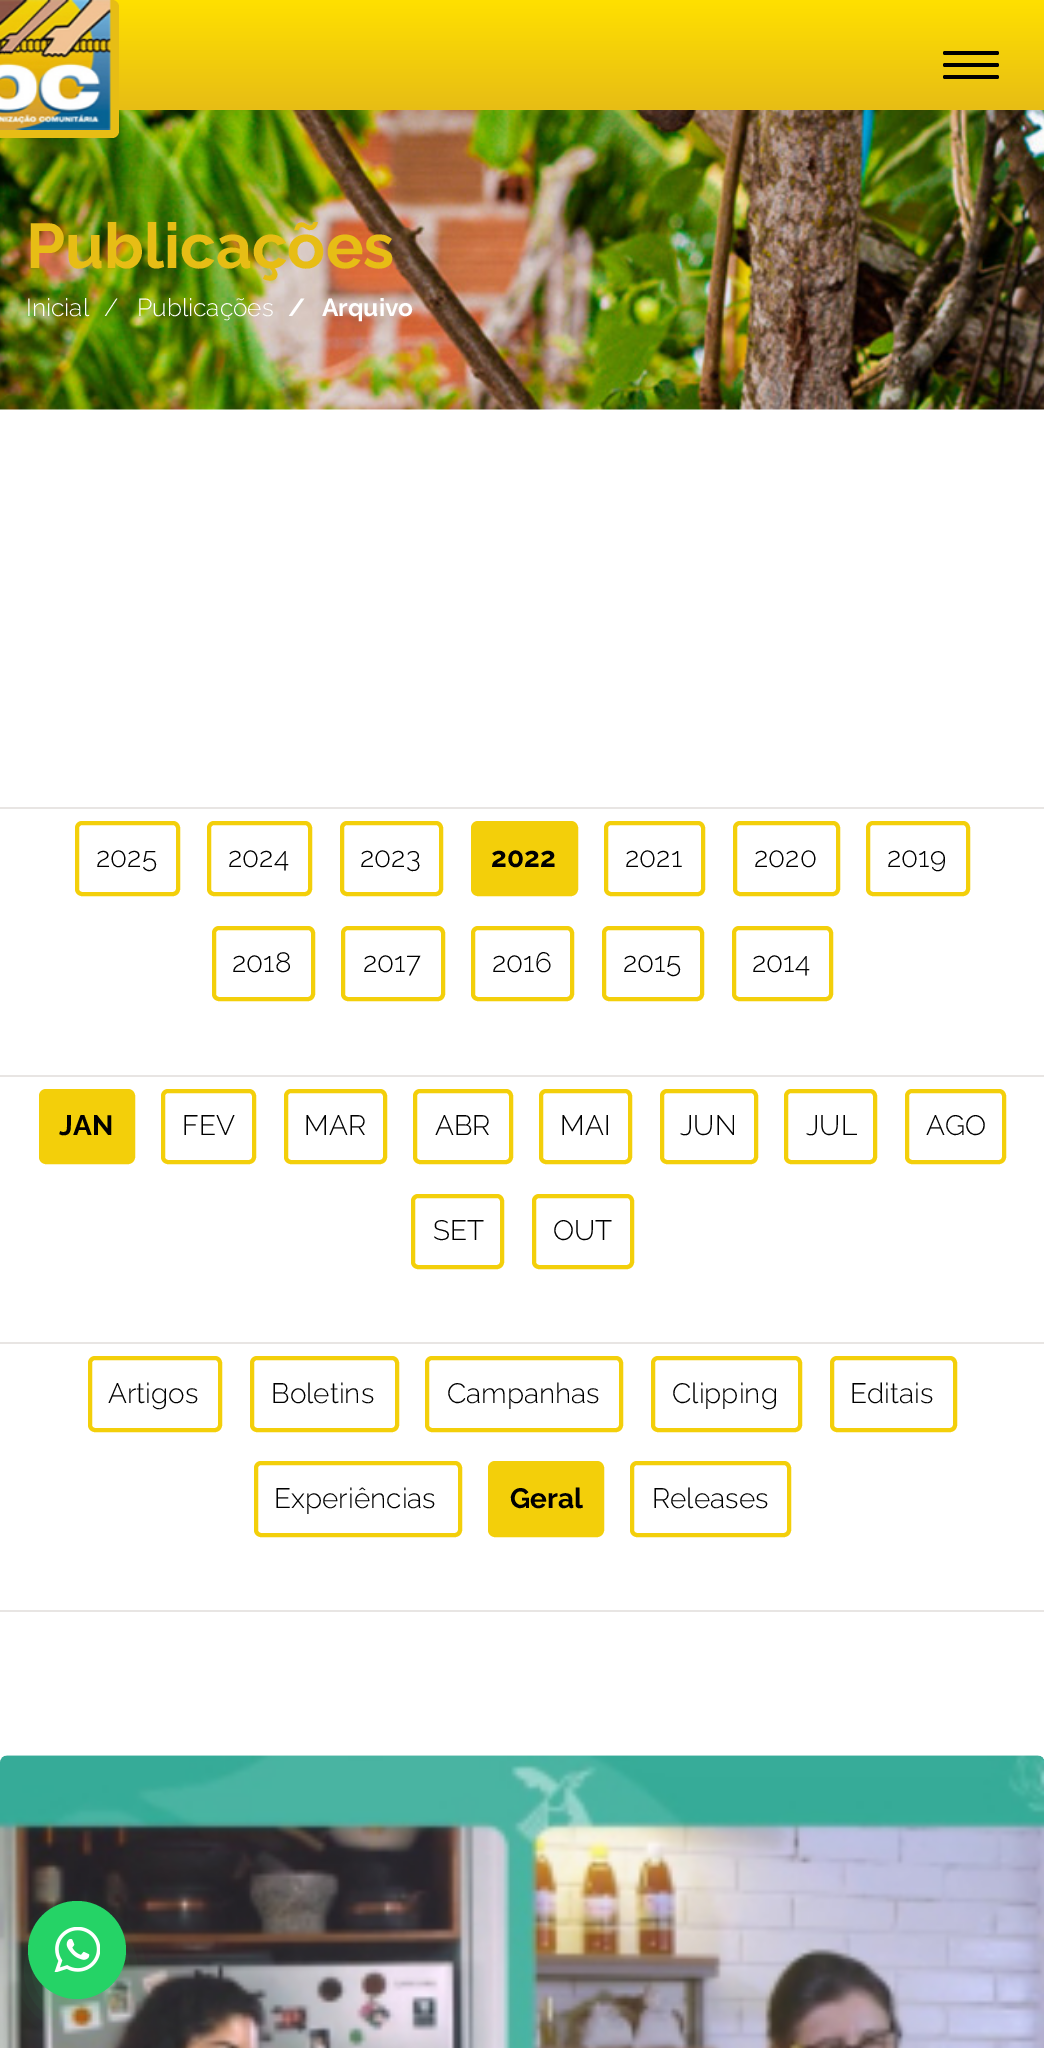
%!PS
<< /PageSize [1044 2048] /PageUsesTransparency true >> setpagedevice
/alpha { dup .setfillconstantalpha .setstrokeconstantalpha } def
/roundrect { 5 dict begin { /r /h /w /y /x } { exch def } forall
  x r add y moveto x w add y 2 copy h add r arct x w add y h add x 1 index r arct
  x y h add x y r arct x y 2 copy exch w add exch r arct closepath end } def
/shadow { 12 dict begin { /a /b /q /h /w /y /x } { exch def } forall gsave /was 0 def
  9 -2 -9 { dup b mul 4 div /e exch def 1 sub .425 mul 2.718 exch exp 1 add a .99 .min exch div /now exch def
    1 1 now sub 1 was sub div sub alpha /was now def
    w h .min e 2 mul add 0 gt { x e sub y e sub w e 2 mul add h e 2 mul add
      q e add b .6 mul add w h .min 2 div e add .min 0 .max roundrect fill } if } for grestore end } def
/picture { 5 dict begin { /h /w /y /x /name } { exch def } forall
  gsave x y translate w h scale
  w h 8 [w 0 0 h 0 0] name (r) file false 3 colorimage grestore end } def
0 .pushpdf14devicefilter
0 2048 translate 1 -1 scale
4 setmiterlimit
1 setgray
0 0 1044 2048 rectfill
gsave newpath 112 0 moveto 1044 0 lineto 1044 110 lineto 112 110 lineto closepath clip newpath
<< /ShadingType 2 /ColorSpace /DeviceRGB /Coords [522 0 522 110] /Extend [true true] /Function << /FunctionType 2 /Domain [0 1] /C0 [1 0.878 0] /C1 [0.906 0.741 0.082] /N 1 >> >> shfill grestore
(img2.rgb) 0 110 1044 300 picture
0.906 0.741 0.082 setrgbcolor
-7 0 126 138 7 roundrect fill
(img1.rgb) 0 0 111 130 picture
0 setgray
943 51 56 4 2 roundrect fill
943 63 56 4 2 roundrect fill
943 75 56 4 2 roundrect fill
/Raleway-Bold [63 0 0 -63 0 0] selectfont
0.906 0.741 0.082 setrgbcolor
26 268 moveto (Publicações) show
/Raleway-Light [24.5 0 0 -24.5 0 0] selectfont
1 setgray
26 316 moveto (Inicial) show
104 316 moveto (/) show
137 316 moveto (Publicações) show
/Raleway-Bold [24.5 0 0 -24.5 0 0] selectfont
288 316 moveto (/) show
322 316 moveto (Arquivo) show
0.91 0.898 0.89 setrgbcolor
0 807 1044 2 rectfill
0 1075 1044 2 rectfill
0.953 0.812 0.039 setrgbcolor
4 setlinewidth
77 823 101 71 5 roundrect stroke
/Raleway-Light [28 0 0 -28 0 0] selectfont
0 setgray
96 867 moveto (2025) show
0.953 0.812 0.039 setrgbcolor
209 823 101 71 5 roundrect stroke
0 setgray
228 867 moveto (2024) show
0.953 0.812 0.039 setrgbcolor
342 823 99 71 5 roundrect stroke
0 setgray
360 867 moveto (2023) show
0.953 0.812 0.039 setrgbcolor
473 823 103 71 5 roundrect gsave fill grestore
stroke
/Raleway-Bold [28 0 0 -28 0 0] selectfont
0 setgray
491 867 moveto (2022) show
0.953 0.812 0.039 setrgbcolor
606 823 97 71 5 roundrect stroke
/Raleway-Light [28 0 0 -28 0 0] selectfont
0 setgray
625 867 moveto (2021) show
0.953 0.812 0.039 setrgbcolor
735 823 103 71 5 roundrect stroke
0 setgray
754 867 moveto (2020) show
0.953 0.812 0.039 setrgbcolor
868 823 100 71 5 roundrect stroke
0 setgray
887 867 moveto (2019) show
0.953 0.812 0.039 setrgbcolor
214 928 99 71 5 roundrect stroke
0 setgray
232 972 moveto (2018) show
0.953 0.812 0.039 setrgbcolor
343 928 100 71 5 roundrect stroke
0 setgray
363 972 moveto (2017) show
0.953 0.812 0.039 setrgbcolor
473 928 99 71 5 roundrect stroke
0 setgray
492 972 moveto (2016) show
0.953 0.812 0.039 setrgbcolor
604 928 98 71 5 roundrect stroke
0 setgray
623 972 moveto (2015) show
0.953 0.812 0.039 setrgbcolor
734 928 97 71 5 roundrect stroke
0 setgray
752 972 moveto (2014) show
0.91 0.898 0.89 setrgbcolor
0 1342 1044 2 rectfill
0.953 0.812 0.039 setrgbcolor
41 1091 92 71 5 roundrect gsave fill grestore
stroke
/Raleway-Bold [28 0 0 -28 0 0] selectfont
0 setgray
59 1135 moveto (JAN) show
0.953 0.812 0.039 setrgbcolor
163 1091 91 71 5 roundrect stroke
/Raleway-Light [28 0 0 -28 0 0] selectfont
0 setgray
182 1135 moveto (FEV) show
0.953 0.812 0.039 setrgbcolor
286 1091 99 71 5 roundrect stroke
0 setgray
304 1135 moveto (MAR) show
0.953 0.812 0.039 setrgbcolor
415 1091 96 71 5 roundrect stroke
0 setgray
435 1135 moveto (ABR) show
0.953 0.812 0.039 setrgbcolor
541 1091 89 71 5 roundrect stroke
0 setgray
560 1135 moveto (MAI) show
0.953 0.812 0.039 setrgbcolor
662 1091 94 71 5 roundrect stroke
0 setgray
680 1135 moveto (JUN) show
0.953 0.812 0.039 setrgbcolor
786 1091 89 71 5 roundrect stroke
0 setgray
806 1135 moveto (JUL) show
0.953 0.812 0.039 setrgbcolor
907 1091 97 71 5 roundrect stroke
0 setgray
926 1135 moveto (AGO) show
0.953 0.812 0.039 setrgbcolor
413 1196 89 71 5 roundrect stroke
0 setgray
433 1240 moveto (SET) show
0.953 0.812 0.039 setrgbcolor
534 1196 98 71 5 roundrect stroke
0 setgray
553 1240 moveto (OUT) show
0.91 0.898 0.89 setrgbcolor
0 1610 1044 2 rectfill
0.953 0.812 0.039 setrgbcolor
90 1358 130 72 5 roundrect stroke
0 setgray
108 1403 moveto (Artigos) show
0.953 0.812 0.039 setrgbcolor
252 1358 145 72 5 roundrect stroke
0 setgray
271 1403 moveto (Boletins) show
0.953 0.812 0.039 setrgbcolor
427 1358 194 72 5 roundrect stroke
0 setgray
447 1403 moveto (Campanhas) show
0.953 0.812 0.039 setrgbcolor
653 1358 147 72 5 roundrect stroke
0 setgray
672 1403 moveto (Clipping) show
0.953 0.812 0.039 setrgbcolor
832 1358 123 72 5 roundrect stroke
0 setgray
850 1403 moveto (Editais) show
0.953 0.812 0.039 setrgbcolor
256 1463 204 72 5 roundrect stroke
0 setgray
274 1508 moveto (Experiências) show
0.953 0.812 0.039 setrgbcolor
490 1463 112 72 5 roundrect gsave fill grestore
stroke
/Raleway-Bold [28 0 0 -28 0 0] selectfont
0 setgray
510 1508 moveto (Geral) show
0.953 0.812 0.039 setrgbcolor
632 1463 157 72 5 roundrect stroke
/Raleway-Light [28 0 0 -28 0 0] selectfont
0 setgray
652 1508 moveto (Releases) show
(img3.rgb) 0 1755 1044 293 picture
0.145 0.827 0.4 setrgbcolor
28 1922 98 98 49 16 0.24 shadow
newpath 77 1950 49 0 360 arc closepath fill
(img4.rgb) 54 1927 46 45 picture
.poppdf14devicefilter showpage
